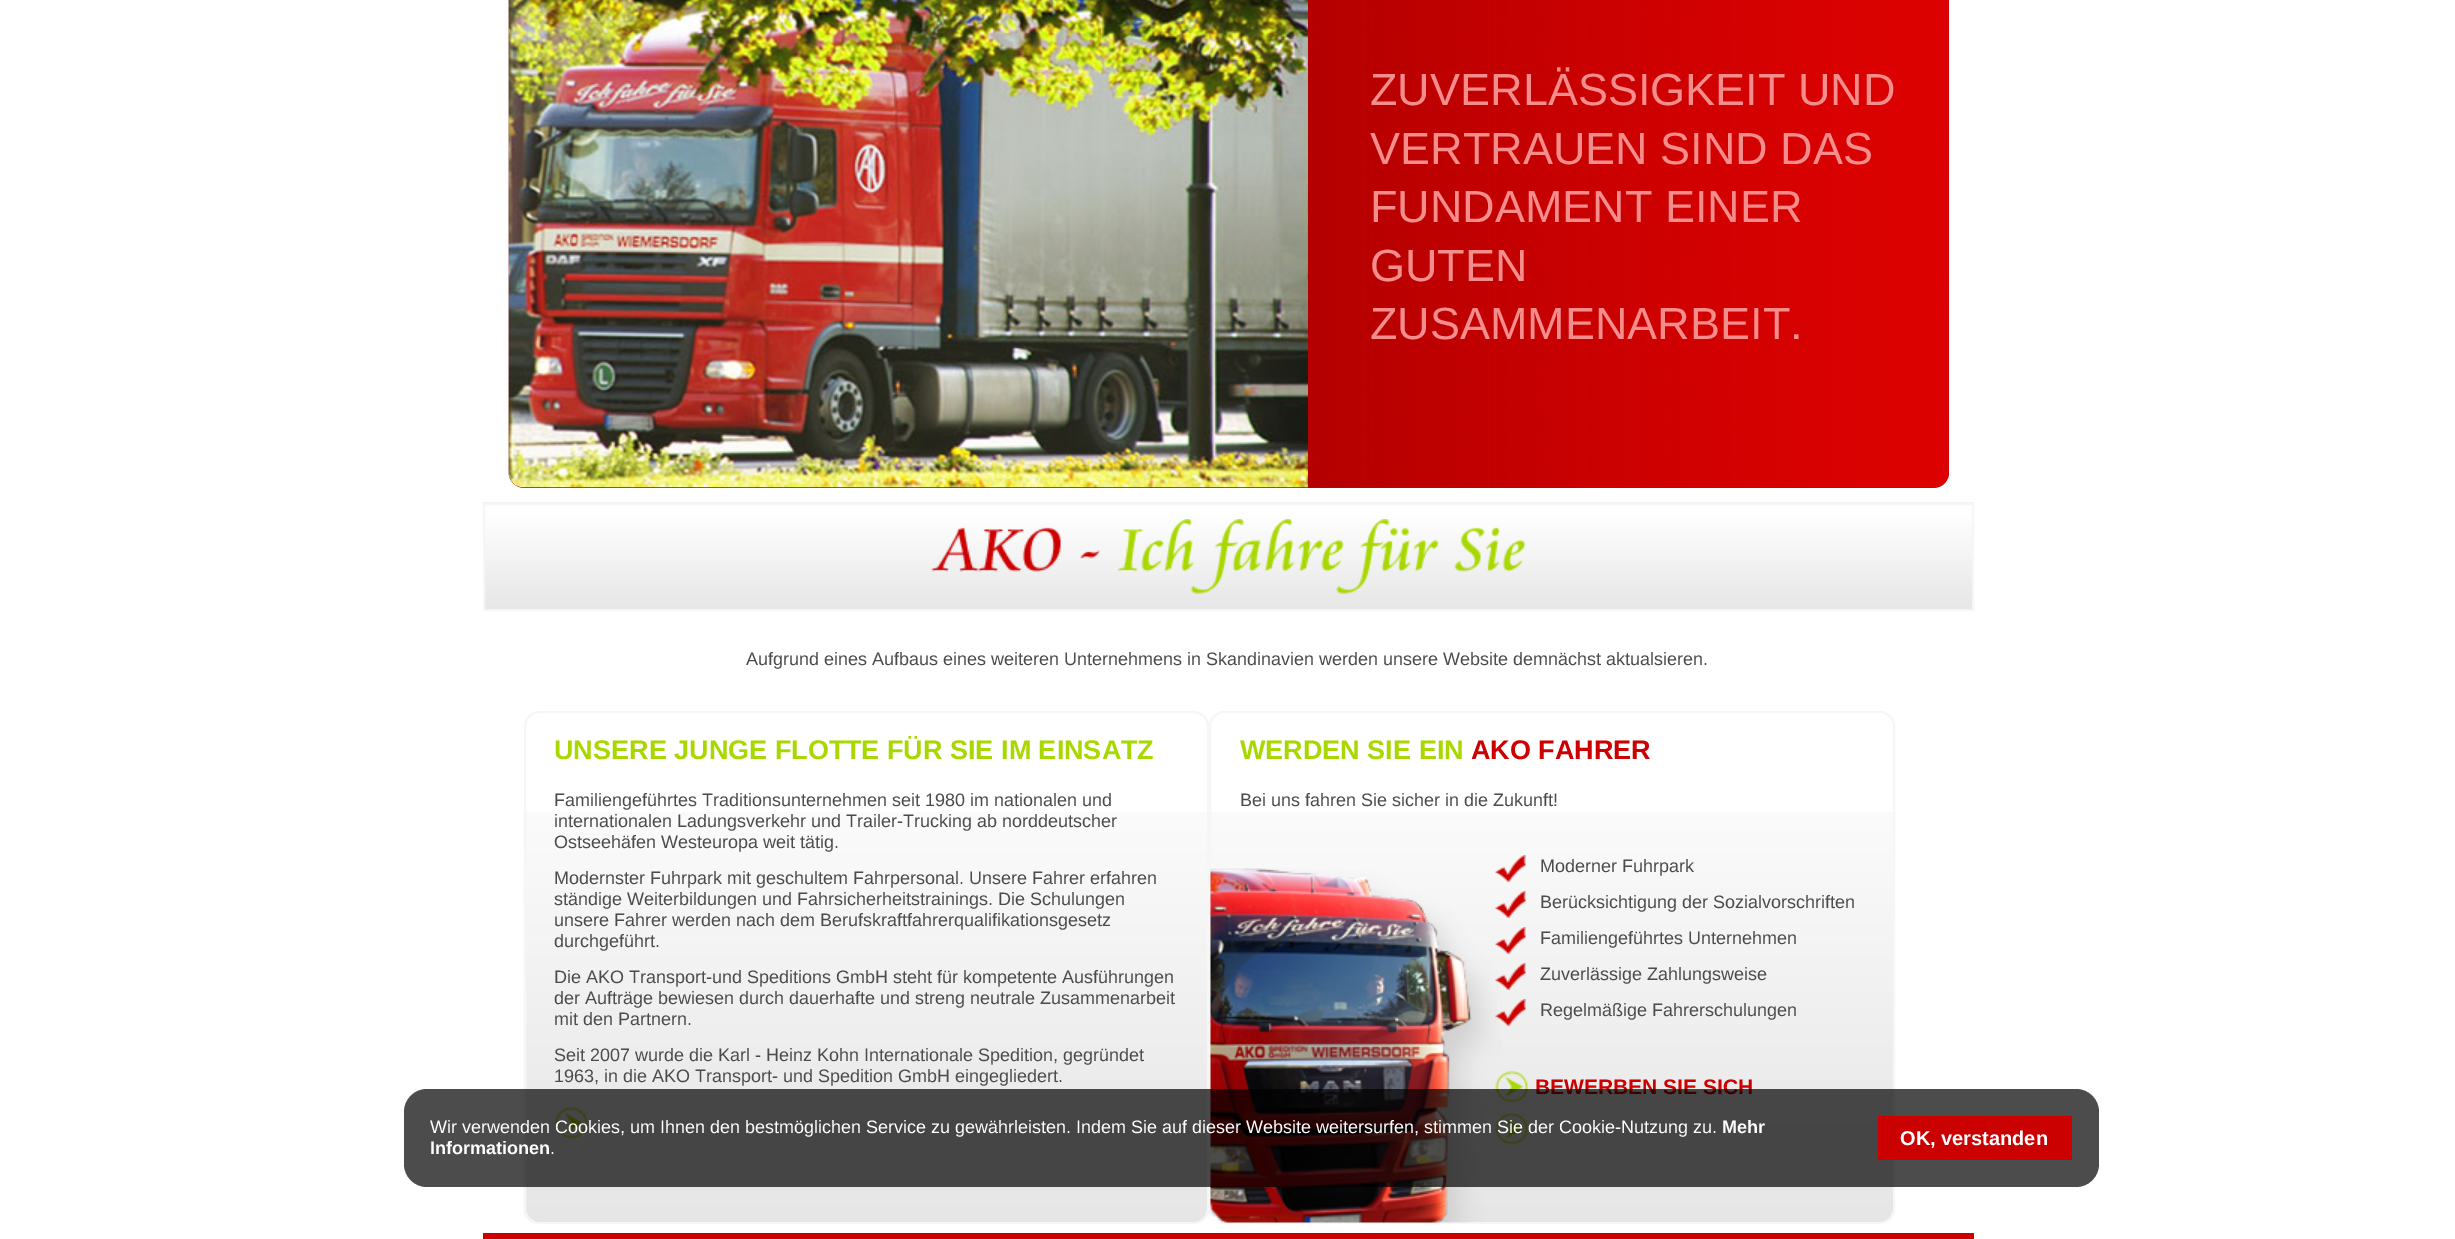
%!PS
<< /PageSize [2455 1239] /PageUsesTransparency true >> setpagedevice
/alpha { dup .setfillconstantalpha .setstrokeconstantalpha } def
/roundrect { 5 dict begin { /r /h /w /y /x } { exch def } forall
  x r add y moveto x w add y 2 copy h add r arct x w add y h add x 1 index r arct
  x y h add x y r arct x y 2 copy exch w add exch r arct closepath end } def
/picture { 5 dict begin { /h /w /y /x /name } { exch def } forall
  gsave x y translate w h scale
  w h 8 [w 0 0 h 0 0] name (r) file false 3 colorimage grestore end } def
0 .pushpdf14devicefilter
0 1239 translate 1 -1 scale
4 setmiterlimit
1 setgray
0 0 2455 1239 rectfill
0.8 0 0 setrgbcolor
509 -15 1440 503 15 roundrect fill
(img1.rgb) 508 0 1440 488 picture
(img2.rgb) 508 0 800 488 picture
/LiberationSans-Regular [45 0 0 -45 0 0] selectfont
0.961 0.553 0.553 setrgbcolor
1370 105 moveto (ZUVERLÄSSIGKEIT UND) show
1370 164 moveto (VERTRAUEN SIND DAS) show
1370 222 moveto (FUNDAMENT EINER) show
1370 281 moveto (GUTEN) show
1370 339 moveto (ZUSAMMENARBEIT.) show
(img3.rgb) 483 502 1491 107 picture
0.965 setgray
2 setlinewidth
484 504 1489 106 rectstroke
(img4.rgb) 931 519 595 75 picture
/LiberationSans-Regular [18 0 0 -18 0 0] selectfont
0.294 setgray
746 665 moveto (Aufgrund eines Aufbaus eines weiteren Unternehmens in Skandinavien werden unsere Website demnächst aktualsieren.) show
(img5.rgb) 523 812 686 411 picture
0.965 setgray
525 712 683 511 14 roundrect stroke
/LiberationSans-Bold [27 0 0 -27 0 0] selectfont
0.659 0.847 0 setrgbcolor
554 759 moveto (UNSERE JUNGE FLOTTE FÜR SIE IM EINSATZ) show
/LiberationSans-Regular [18 0 0 -18 0 0] selectfont
0.294 setgray
554 806 moveto (Familiengeführtes Traditionsunternehmen seit 1980 im nationalen und) show
554 827 moveto (internationalen Ladungsverkehr und Trailer-Trucking ab norddeutscher) show
554 848 moveto (Ostseehäfen Westeuropa weit tätig.) show
554 884 moveto (Modernster Fuhrpark mit geschultem Fahrpersonal. Unsere Fahrer erfahren) show
554 905 moveto (ständige Weiterbildungen und Fahrsicherheitstrainings. Die Schulungen) show
554 926 moveto (unsere Fahrer werden nach dem Berufskraftfahrerqualifikationsgesetz) show
554 947 moveto (durchgeführt.) show
554 983 moveto (Die AKO Transport-und Speditions GmbH steht für kompetente Ausführungen) show
554 1004 moveto (der Aufträge bewiesen durch dauerhafte und streng neutrale Zusammenarbeit) show
554 1025 moveto (mit den Partnern.) show
554 1061 moveto (Seit 2007 wurde die Karl - Heinz Kohn Internationale Spedition, gegründet) show
554 1082 moveto (1963, in die AKO Transport- und Spedition GmbH eingegliedert.) show
(img6.rgb) 555 1107 33 32 picture
(img7.rgb) 1209 812 686 411 picture
0.965 setgray
1210 712 684 511 14 roundrect stroke
/LiberationSans-Bold [27 0 0 -27 0 0] selectfont
0.659 0.847 0 setrgbcolor
1240 759 moveto (WERDEN SIE EIN) show
0.8 0 0 setrgbcolor
1471 759 moveto (AKO FAHRER) show
/LiberationSans-Regular [18 0 0 -18 0 0] selectfont
0.294 setgray
1240 806 moveto (Bei uns fahren Sie sicher in die Zukunft!) show
(img9.rgb) 1495 855 31 27 picture
(img10.rgb) 1495 891 31 27 picture
(img11.rgb) 1495 927 31 27 picture
(img12.rgb) 1495 963 31 27 picture
(img13.rgb) 1495 999 31 27 picture
(img14.rgb) 1495 1071 34 32 picture
(img15.rgb) 1495 1113 34 32 picture
(img8.rgb) 1210 868 292 355 picture
1540 872 moveto (Moderner Fuhrpark) show
1540 908 moveto (Berücksichtigung der Sozialvorschriften) show
1540 944 moveto (Familiengeführtes Unternehmen) show
1540 980 moveto (Zuverlässige Zahlungsweise) show
1540 1016 moveto (Regelmäßige Fahrerschulungen) show
/LiberationSans-Bold [21 0 0 -21 0 0] selectfont
0.8 0 0 setrgbcolor
1535 1094 moveto (BEWERBEN SIE SICH) show
483 1233 1491 6 rectfill
0.7 alpha
0 setgray
404 1089 1695 98 23 roundrect fill
/LiberationSans-Regular [18 0 0 -18 0 0] selectfont
1 alpha
1 setgray
430 1133 moveto (Wir verwenden Cookies, um Ihnen den bestmöglichen Service zu gewährleisten. Indem Sie auf dieser Website weitersurfen, stimmen Sie der Cookie-Nutzung zu.) show
/LiberationSans-Bold [18 0 0 -18 0 0] selectfont
1722 1133 moveto (Mehr) show
430 1154 moveto (Informationen) show
/LiberationSans-Regular [18 0 0 -18 0 0] selectfont
550 1154 moveto (.) show
0.796 0 0.004 setrgbcolor
1878 1116 194 44 rectfill
/LiberationSans-Bold [20 0 0 -20 0 0] selectfont
1 setgray
1900 1145 moveto (OK, verstanden) show
.poppdf14devicefilter showpage
